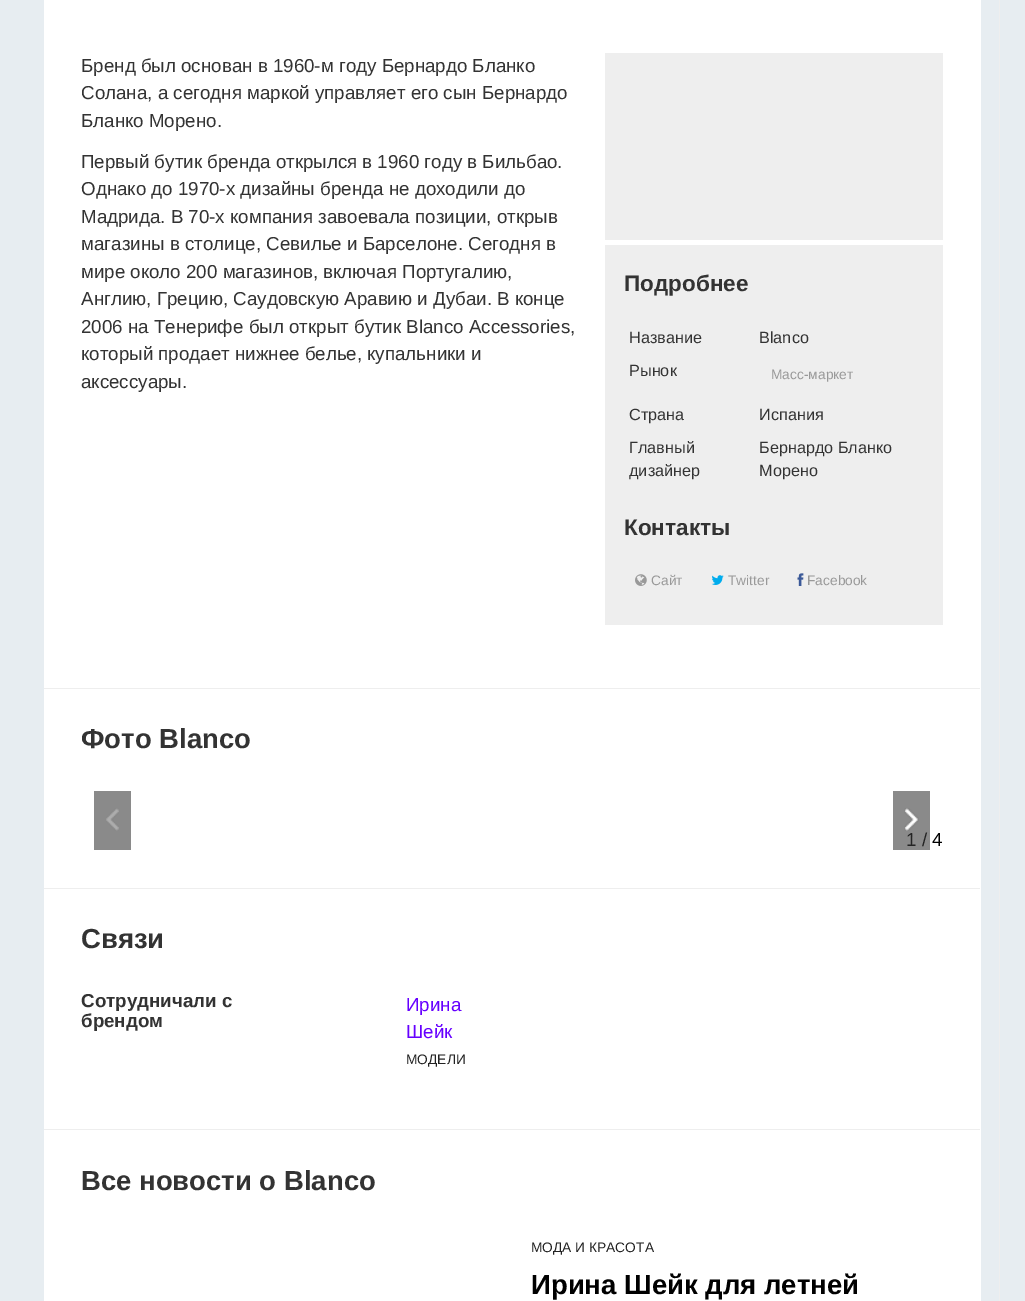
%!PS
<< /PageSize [1025 1301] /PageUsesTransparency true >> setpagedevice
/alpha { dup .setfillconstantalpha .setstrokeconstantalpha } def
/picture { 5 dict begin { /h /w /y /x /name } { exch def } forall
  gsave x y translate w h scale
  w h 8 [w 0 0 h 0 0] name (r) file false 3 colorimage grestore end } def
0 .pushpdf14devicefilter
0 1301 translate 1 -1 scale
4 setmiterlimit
0.906 0.929 0.945 setrgbcolor
0 0 1025 1301 rectfill
1 setgray
44 0 937 1301 rectfill
0.933 setgray
999 0 1 1301 rectfill
/LiberationSans-Regular [18.75 0 0 -18.75 0 0] selectfont
0.2 setgray
81 72 moveto (Бренд был основан в 1960-м году Бернардо Бланко) show
81 99 moveto (Солана, а сегодня маркой управляет его сын Бернардо) show
81 127 moveto (Бланко Морено.) show
81 168 moveto (Первый бутик бренда открылся в 1960 году в Бильбао.) show
81 195 moveto (Однако до 1970-х дизайны бренда не доходили до) show
81 223 moveto (Мадрида. В 70-х компания завоевала позиции, открыв) show
81 250 moveto (магазины в столице, Севилье и Барселоне. Сегодня в) show
81 278 moveto (мире около 200 магазинов, включая Португалию,) show
81 305 moveto (Англию, Грецию, Саудовскую Аравию и Дубаи. В конце) show
81 333 moveto (2006 на Тенерифе был открыт бутик Blanco Accessories,) show
81 360 moveto (который продает нижнее белье, купальники и) show
81 388 moveto (аксессуары.) show
0.933 setgray
605 53 338 572 rectfill
1 setgray
605 240 338 5 rectfill
/LiberationSans-Bold [22.5 0 0 -22.5 0 0] selectfont
0.2 setgray
624 291 moveto (Подробнее) show
/LiberationSans-Regular [16.25 0 0 -16.25 0 0] selectfont
629 343 moveto (Название) show
759 343 moveto (Blanco) show
629 376 moveto (Рынок) show
/LiberationSans-Regular [13.75 0 0 -13.75 0 0] selectfont
0.6 setgray
771 379 moveto (Масс-маркет) show
/LiberationSans-Regular [16.25 0 0 -16.25 0 0] selectfont
0.2 setgray
629 420 moveto (Страна) show
759 420 moveto (Испания) show
629 453 moveto (Главный) show
629 476 moveto (дизайнер) show
759 453 moveto (Бернардо Бланко) show
759 476 moveto (Морено) show
/LiberationSans-Bold [22.5 0 0 -22.5 0 0] selectfont
624 535 moveto (Контакты) show
(img1.rgb) 635 574 12 12 picture
/LiberationSans-Regular [13.75 0 0 -13.75 0 0] selectfont
0.6 setgray
651 585 moveto (Сайт) show
(img2.rgb) 711 575 13 10 picture
728 585 moveto (Twitter) show
(img3.rgb) 797 573 7 13 picture
807 585 moveto (Facebook) show
0.933 setgray
44 688 936 1 rectfill
/LiberationSans-Bold [27.5 0 0 -27.5 0 0] selectfont
0.2 setgray
81 748 moveto (Фото Blanco) show
0.541 setgray
94 791 37 59 rectfill
(img4.rgb) 106 808 13 23 picture
/LiberationSans-Regular [18.75 0 0 -18.75 0 0] selectfont
0 setgray
906 846 moveto (1 / 4) show
0.6 alpha
0.235 setgray
893 791 37 59 rectfill
1 alpha
(img5.rgb) 904 808 15 23 picture
0.933 setgray
44 888 936 1 rectfill
/LiberationSans-Bold [27.5 0 0 -27.5 0 0] selectfont
0.2 setgray
81 948 moveto (Связи) show
/LiberationSans-Bold [18.75 0 0 -18.75 0 0] selectfont
81 1007 moveto (Сотрудничали с) show
81 1027 moveto (брендом) show
/LiberationSans-Regular [18.75 0 0 -18.75 0 0] selectfont
0.4 0 1 setrgbcolor
406 1011 moveto (Ирина) show
406 1038 moveto (Шейк) show
/LiberationSans-Regular [13.75 0 0 -13.75 0 0] selectfont
0.133 setgray
406 1064 moveto (МОДЕЛИ) show
0.933 setgray
44 1129 936 1 rectfill
/LiberationSans-Bold [27.5 0 0 -27.5 0 0] selectfont
0.2 setgray
81 1190 moveto (Все новости о Blanco) show
/LiberationSans-Regular [13.75 0 0 -13.75 0 0] selectfont
0.133 setgray
531 1252 moveto (МОДА И КРАСОТА) show
/LiberationSans-Bold [27.5 0 0 -27.5 0 0] selectfont
0 setgray
531 1294 moveto (Ирина Шейк для летней) show
.poppdf14devicefilter showpage
